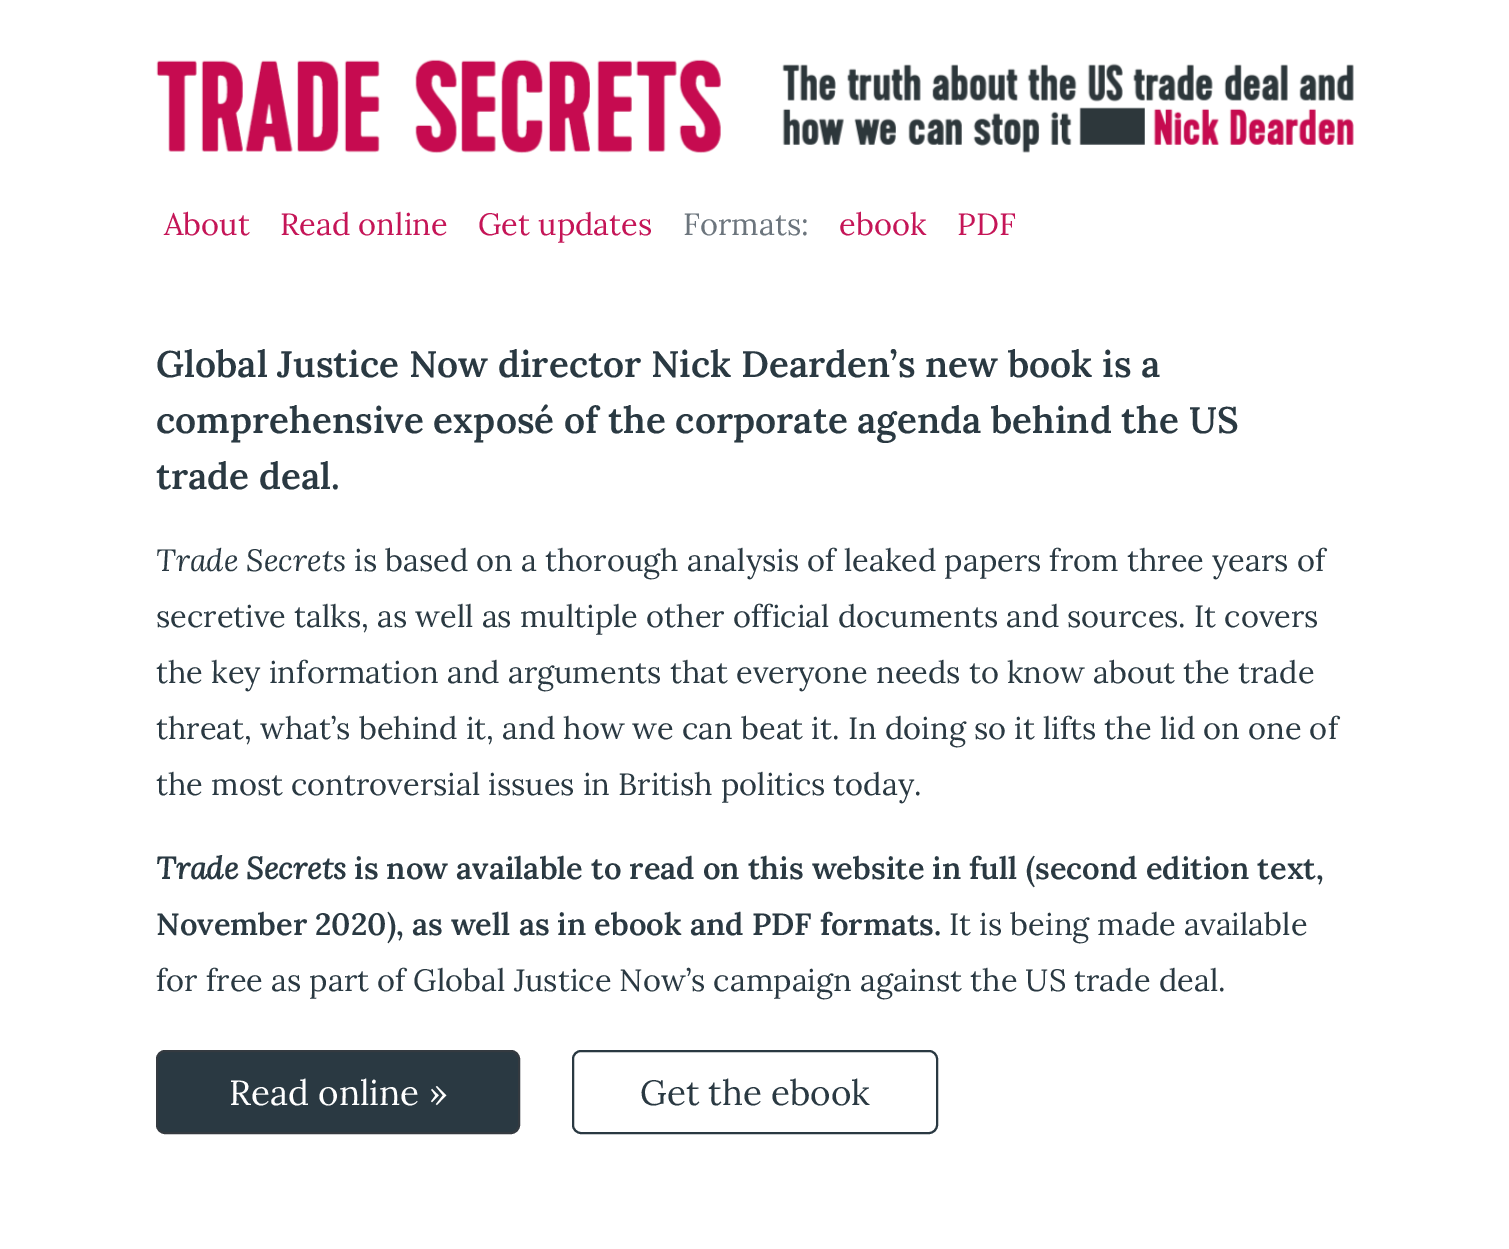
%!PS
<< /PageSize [1509 1249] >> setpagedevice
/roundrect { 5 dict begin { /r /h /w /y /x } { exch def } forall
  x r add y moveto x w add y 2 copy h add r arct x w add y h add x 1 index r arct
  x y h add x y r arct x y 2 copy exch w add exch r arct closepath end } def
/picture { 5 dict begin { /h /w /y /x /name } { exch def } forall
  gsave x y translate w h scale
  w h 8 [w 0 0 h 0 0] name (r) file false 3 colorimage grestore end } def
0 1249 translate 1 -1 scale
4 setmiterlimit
1 setgray
0 0 1509 1249 rectfill
(img1.rgb) 156 59 565 95 picture
(img2.rgb) 782 63 572 90 picture
/Lora-Regular [30.8 0 0 -30.8 0 0] selectfont
0.773 0.082 0.341 setrgbcolor
164 235 moveto (About) show
280 235 moveto (Read online) show
478 235 moveto (Get updates) show
0.424 0.459 0.49 setrgbcolor
683 235 moveto (Formats:) show
0.773 0.082 0.341 setrgbcolor
839 235 moveto (ebook) show
957 235 moveto (PDF) show
/Lora-SemiBold [36.95 0 0 -36.95 0 0] selectfont
0.165 0.224 0.259 setrgbcolor
156 377 moveto (Global Justice Now director Nick Dearden’s new book is a) show
156 433 moveto (comprehensive exposé of the corporate agenda behind the US) show
156 489 moveto (trade deal.) show
/Lora-Italic [30.8 0 0 -30.8 0 0] selectfont
156 571 moveto (Trade Secrets) show
/Lora-Regular [30.8 0 0 -30.8 0 0] selectfont
354 571 moveto (is based on a thorough analysis of leaked papers from three years of) show
156 627 moveto (secretive talks, as well as multiple other official documents and sources. It covers) show
156 683 moveto (the key information and arguments that everyone needs to know about the trade) show
156 739 moveto (threat, what’s behind it, and how we can beat it. In doing so it lifts the lid on one of) show
156 795 moveto (the most controversial issues in British politics today.) show
/Lora-BoldItalic [30.8 0 0 -30.8 0 0] selectfont
156 879 moveto (Trade Secrets) show
/Lora-SemiBold [30.8 0 0 -30.8 0 0] selectfont
354 879 moveto (is now available to read on this website in full \(second edition text,) show
156 935 moveto (November 2020\), as well as in ebook and PDF formats.) show
/Lora-Regular [30.8 0 0 -30.8 0 0] selectfont
949 935 moveto (It is being made available) show
156 991 moveto (for free as part of Global Justice Now’s campaign against the US trade deal.) show
157 1051 362 82 8 roundrect gsave fill grestore
0.204 0.227 0.251 setrgbcolor
2 setlinewidth
stroke
/Lora-Regular [35 0 0 -35 0 0] selectfont
1 setgray
229 1105 moveto (Read online ») show
0.165 0.224 0.259 setrgbcolor
573 1051 364 82 8 roundrect stroke
640 1105 moveto (Get the ebook) show
showpage
